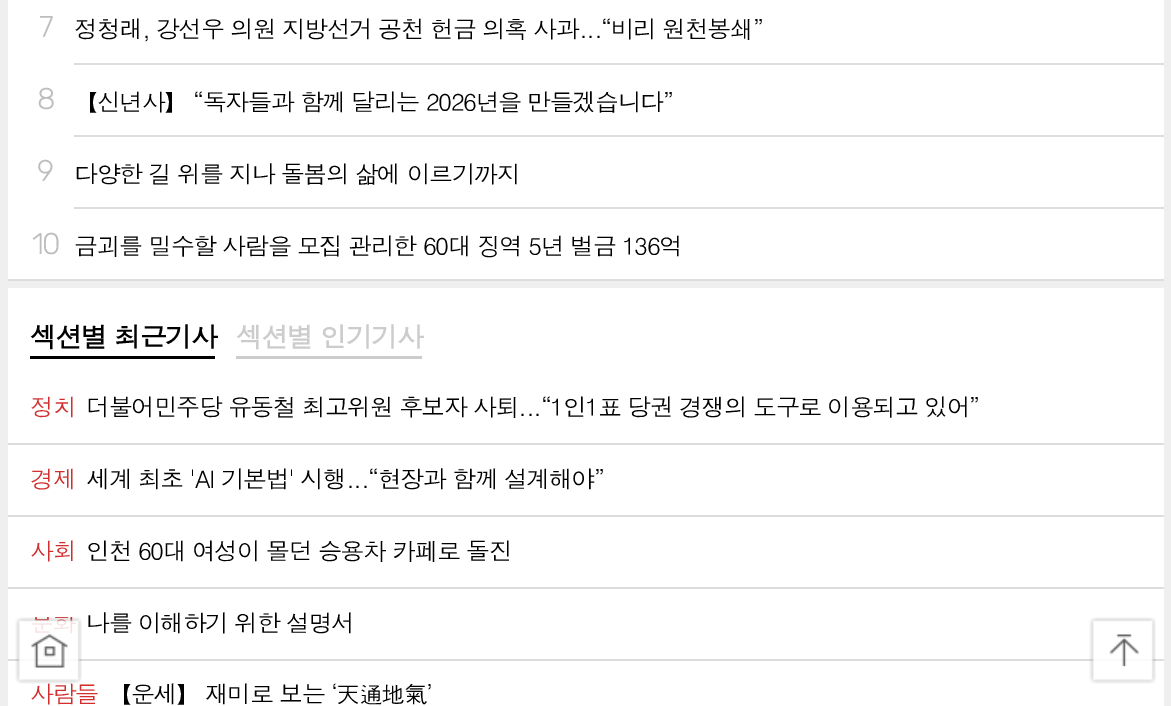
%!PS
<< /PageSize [1171 706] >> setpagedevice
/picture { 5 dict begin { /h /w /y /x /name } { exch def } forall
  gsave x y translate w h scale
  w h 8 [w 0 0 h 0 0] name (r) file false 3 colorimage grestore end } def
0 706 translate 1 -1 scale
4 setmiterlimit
0.937 setgray
0 0 1171 706 rectfill
0.867 setgray
8 279 1156 2 rectfill
1 setgray
8 0 1156 279 rectfill
/Rubik-Light [30 0 0 -30 0 0] selectfont
0.741 setgray
39 37 moveto -2 0 (7) ashow
/Dotum-Regular [24 0 0 -24 0 0] selectfont
0 setgray
74 38 moveto -1.45 0 (정청래, 강선우 의원 지방선거 공천 헌금 의혹 사과...“비리 원천봉쇄”) ashow
0.867 setgray
74 63 1090 2 rectfill
/Rubik-Light [30 0 0 -30 0 0] selectfont
0.741 setgray
37 109 moveto -2 0 (8) ashow
/Dotum-Regular [24 0 0 -24 0 0] selectfont
0 setgray
74 111 moveto -1.45 0 (【신년사】 “독자들과 함께 달리는 2026년을 만들겠습니다”) ashow
0.867 setgray
74 135 1090 2 rectfill
/Rubik-Light [30 0 0 -30 0 0] selectfont
0.741 setgray
37 181 moveto -2 0 (9) ashow
/Dotum-Regular [24 0 0 -24 0 0] selectfont
0 setgray
74 183 moveto -1.45 0 (다양한 길 위를 지나 돌봄의 삶에 이르기까지) ashow
0.867 setgray
74 207 1090 2 rectfill
/Rubik-Light [30 0 0 -30 0 0] selectfont
0.741 setgray
32 254 moveto -2 0 (10) ashow
/Dotum-Regular [24 0 0 -24 0 0] selectfont
0 setgray
74 255 moveto -1.45 0 (금괴를 밀수할 사람을 모집 관리한 60대 징역 5년 벌금 136억) ashow
1 setgray
8 288 1156 418 rectfill
0 setgray
30 356 185 3 rectfill
/Dotum-Bold [27 0 0 -27 0 0] selectfont
30 347 moveto -1.5 0 (섹션별 최근기사) ashow
0.8 setgray
236 356 186 3 rectfill
236 347 moveto -1.5 0 (섹션별 인기기사) ashow
/Dotum-Regular [24 0 0 -24 0 0] selectfont
0.824 0.18 0.18 setrgbcolor
30 416 moveto -1.45 0 (정치) ashow
0 setgray
86 416 moveto -1.45 0 (더불어민주당 유동철 최고위원 후보자 사퇴...“1인1표 당권 경쟁의 도구로 이용되고 있어”) ashow
0.867 setgray
8 443 1156 2 rectfill
0.824 0.18 0.18 setrgbcolor
30 488 moveto -1.45 0 (경제) ashow
0 setgray
86 488 moveto -1.45 0 (세계 최초 'AI 기본법' 시행...“현장과 함께 설계해야”) ashow
0.867 setgray
8 515 1156 2 rectfill
0.824 0.18 0.18 setrgbcolor
30 560 moveto -1.45 0 (사회) ashow
0 setgray
86 560 moveto -1.45 0 (인천 60대 여성이 몰던 승용차 카페로 돌진) ashow
0.867 setgray
8 587 1156 2 rectfill
0 setgray
86 632 moveto -1.45 0 (나를 이해하기 위한 설명서) ashow
0.867 setgray
8 659 1156 2 rectfill
0.824 0.18 0.18 setrgbcolor
30 703 moveto -1.45 0 (사람들) ashow
0 setgray
108 703 moveto -1.45 0 (【운세】 재미로 보는 ‘天通地氣’) ashow
(img1.rgb) 15 617 67 67 picture
(img2.rgb) 1089 617 67 67 picture
showpage
